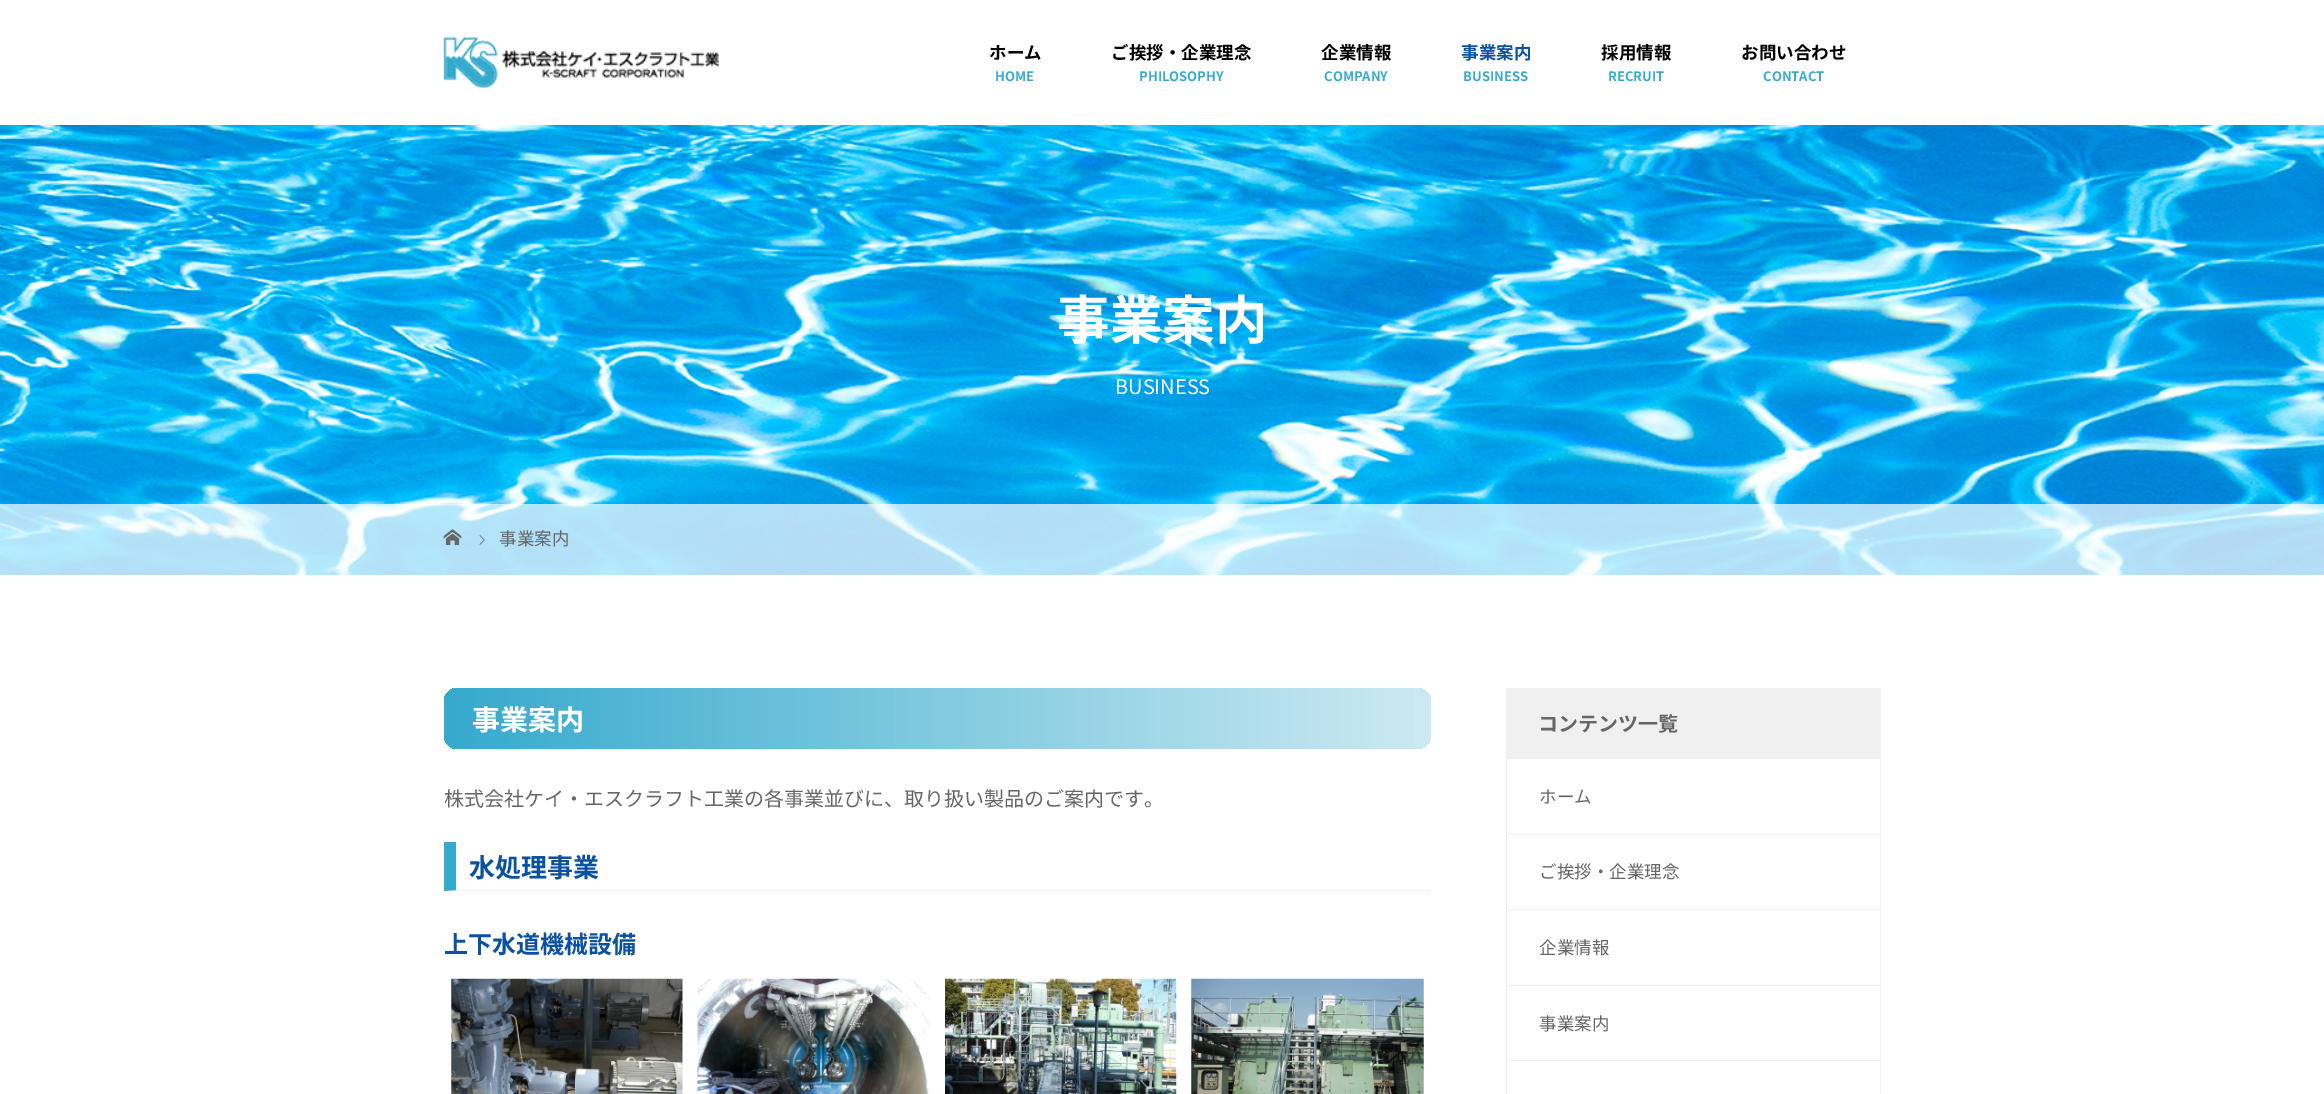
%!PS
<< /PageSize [2324 1094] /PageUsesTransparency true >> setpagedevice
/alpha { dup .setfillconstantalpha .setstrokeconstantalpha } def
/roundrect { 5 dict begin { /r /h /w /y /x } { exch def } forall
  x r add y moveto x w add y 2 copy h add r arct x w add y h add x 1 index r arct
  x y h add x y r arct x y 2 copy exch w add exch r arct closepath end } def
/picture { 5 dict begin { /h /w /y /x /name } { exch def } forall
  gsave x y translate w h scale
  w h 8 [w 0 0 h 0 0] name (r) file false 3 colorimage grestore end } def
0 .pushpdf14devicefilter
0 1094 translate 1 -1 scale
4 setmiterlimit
1 setgray
0 0 2324 1094 rectfill
(img1.rgb) 443 37 276 51 picture
/NotoSansJP-Bold [17.5 0 0 -17.5 0 0] selectfont
0 setgray
989 59 moveto (ホーム) show
/NotoSansJP-Bold [13 0 0 -13 0 0] selectfont
0.208 0.667 0.804 setrgbcolor
995 81 moveto (HOME) show
/NotoSansJP-Bold [17.5 0 0 -17.5 0 0] selectfont
0 setgray
1111 59 moveto (ご挨拶・企業理念) show
/NotoSansJP-Bold [13 0 0 -13 0 0] selectfont
0.208 0.667 0.804 setrgbcolor
1139 81 moveto (PHILOSOPHY) show
/NotoSansJP-Bold [17.5 0 0 -17.5 0 0] selectfont
0 setgray
1321 59 moveto (企業情報) show
/NotoSansJP-Bold [13 0 0 -13 0 0] selectfont
0.208 0.667 0.804 setrgbcolor
1324 81 moveto (COMPANY) show
/NotoSansJP-Bold [17.5 0 0 -17.5 0 0] selectfont
0.039 0.318 0.631 setrgbcolor
1461 59 moveto (事業案内) show
/NotoSansJP-Bold [13 0 0 -13 0 0] selectfont
0.208 0.667 0.804 setrgbcolor
1463 81 moveto (BUSINESS) show
/NotoSansJP-Bold [17.5 0 0 -17.5 0 0] selectfont
0 setgray
1601 59 moveto (採用情報) show
/NotoSansJP-Bold [13 0 0 -13 0 0] selectfont
0.208 0.667 0.804 setrgbcolor
1608 81 moveto (RECRUIT) show
/NotoSansJP-Bold [17.5 0 0 -17.5 0 0] selectfont
0 setgray
1741 59 moveto (お問い合わせ) show
/NotoSansJP-Bold [13 0 0 -13 0 0] selectfont
0.208 0.667 0.804 setrgbcolor
1763 81 moveto (CONTACT) show
(img2.rgb) 0 125 2324 450 picture
/NotoSansJP-Bold [52.5 0 0 -52.5 0 0] selectfont
1 setgray
1057 339 moveto (事業案内) show
/NotoSansJP-Regular [20 0 0 -20 0 0] selectfont
1115 394 moveto (BUSINESS) show
0.7 alpha
0 504 2324 71 rectfill
1 alpha
(img3.rgb) 443 529 19 16 picture
(img4.rgb) 479 535 6 10 picture
/NotoSansJP-Regular [17.5 0 0 -17.5 0 0] selectfont
0.4 setgray
499 545 moveto (事業案内) show
gsave 444 688 987 61 14 roundrect clip newpath
<< /ShadingType 2 /ColorSpace /DeviceRGB /Coords [444 718 1431 718] /Extend [true true] /Function << /FunctionType 2 /Domain [0 1] /C0 [0.208 0.667 0.804] /C1 [0.8 0.918 0.949] /N 1 >> >> shfill grestore
/NotoSansJP-Bold [28 0 0 -28 0 0] selectfont
1 setgray
472 730 moveto (事業案内) show
/NotoSansJP-Regular [20 0 0 -20 0 0] selectfont
0.4 setgray
444 806 moveto (株式会社ケイ・エスクラフト工業の各事業並びに、取り扱い製品のご案内です。) show
0.941 setgray
newpath 1431 891 moveto 444 891 lineto 456 890 lineto 1431 890 lineto closepath fill
0.208 0.667 0.804 setrgbcolor
newpath 444 891 moveto 444 842 lineto 456 842 lineto 456 890 lineto closepath fill
/NotoSansJP-Bold [26 0 0 -26 0 0] selectfont
0.039 0.318 0.631 setrgbcolor
469 877 moveto (水処理事業) show
/NotoSansJP-Bold [24 0 0 -24 0 0] selectfont
444 953 moveto (上下水道機械設備) show
(img5.rgb) 451 978 232 116 picture
(img6.rgb) 697 978 233 116 picture
(img7.rgb) 945 978 232 116 picture
(img8.rgb) 1191 978 233 116 picture
0.941 setgray
1506 688 375 71 rectfill
/NotoSansJP-Bold [20 0 0 -20 0 0] selectfont
0.4 setgray
1538 731 moveto (コンテンツ一覧) show
0.941 setgray
1880 758 1 336 rectfill
1506 758 1 336 rectfill
1508 834 372 1 rectfill
/NotoSansJP-Regular [17.5 0 0 -17.5 0 0] selectfont
0.4 setgray
1539 803 moveto (ホーム) show
0.941 setgray
1508 909 372 1 rectfill
0.4 setgray
1539 878 moveto (ご挨拶・企業理念) show
0.941 setgray
1508 985 372 1 rectfill
0.4 setgray
1539 954 moveto (企業情報) show
0.941 setgray
1508 1060 372 1 rectfill
0.4 setgray
1539 1030 moveto (事業案内) show
.poppdf14devicefilter showpage
